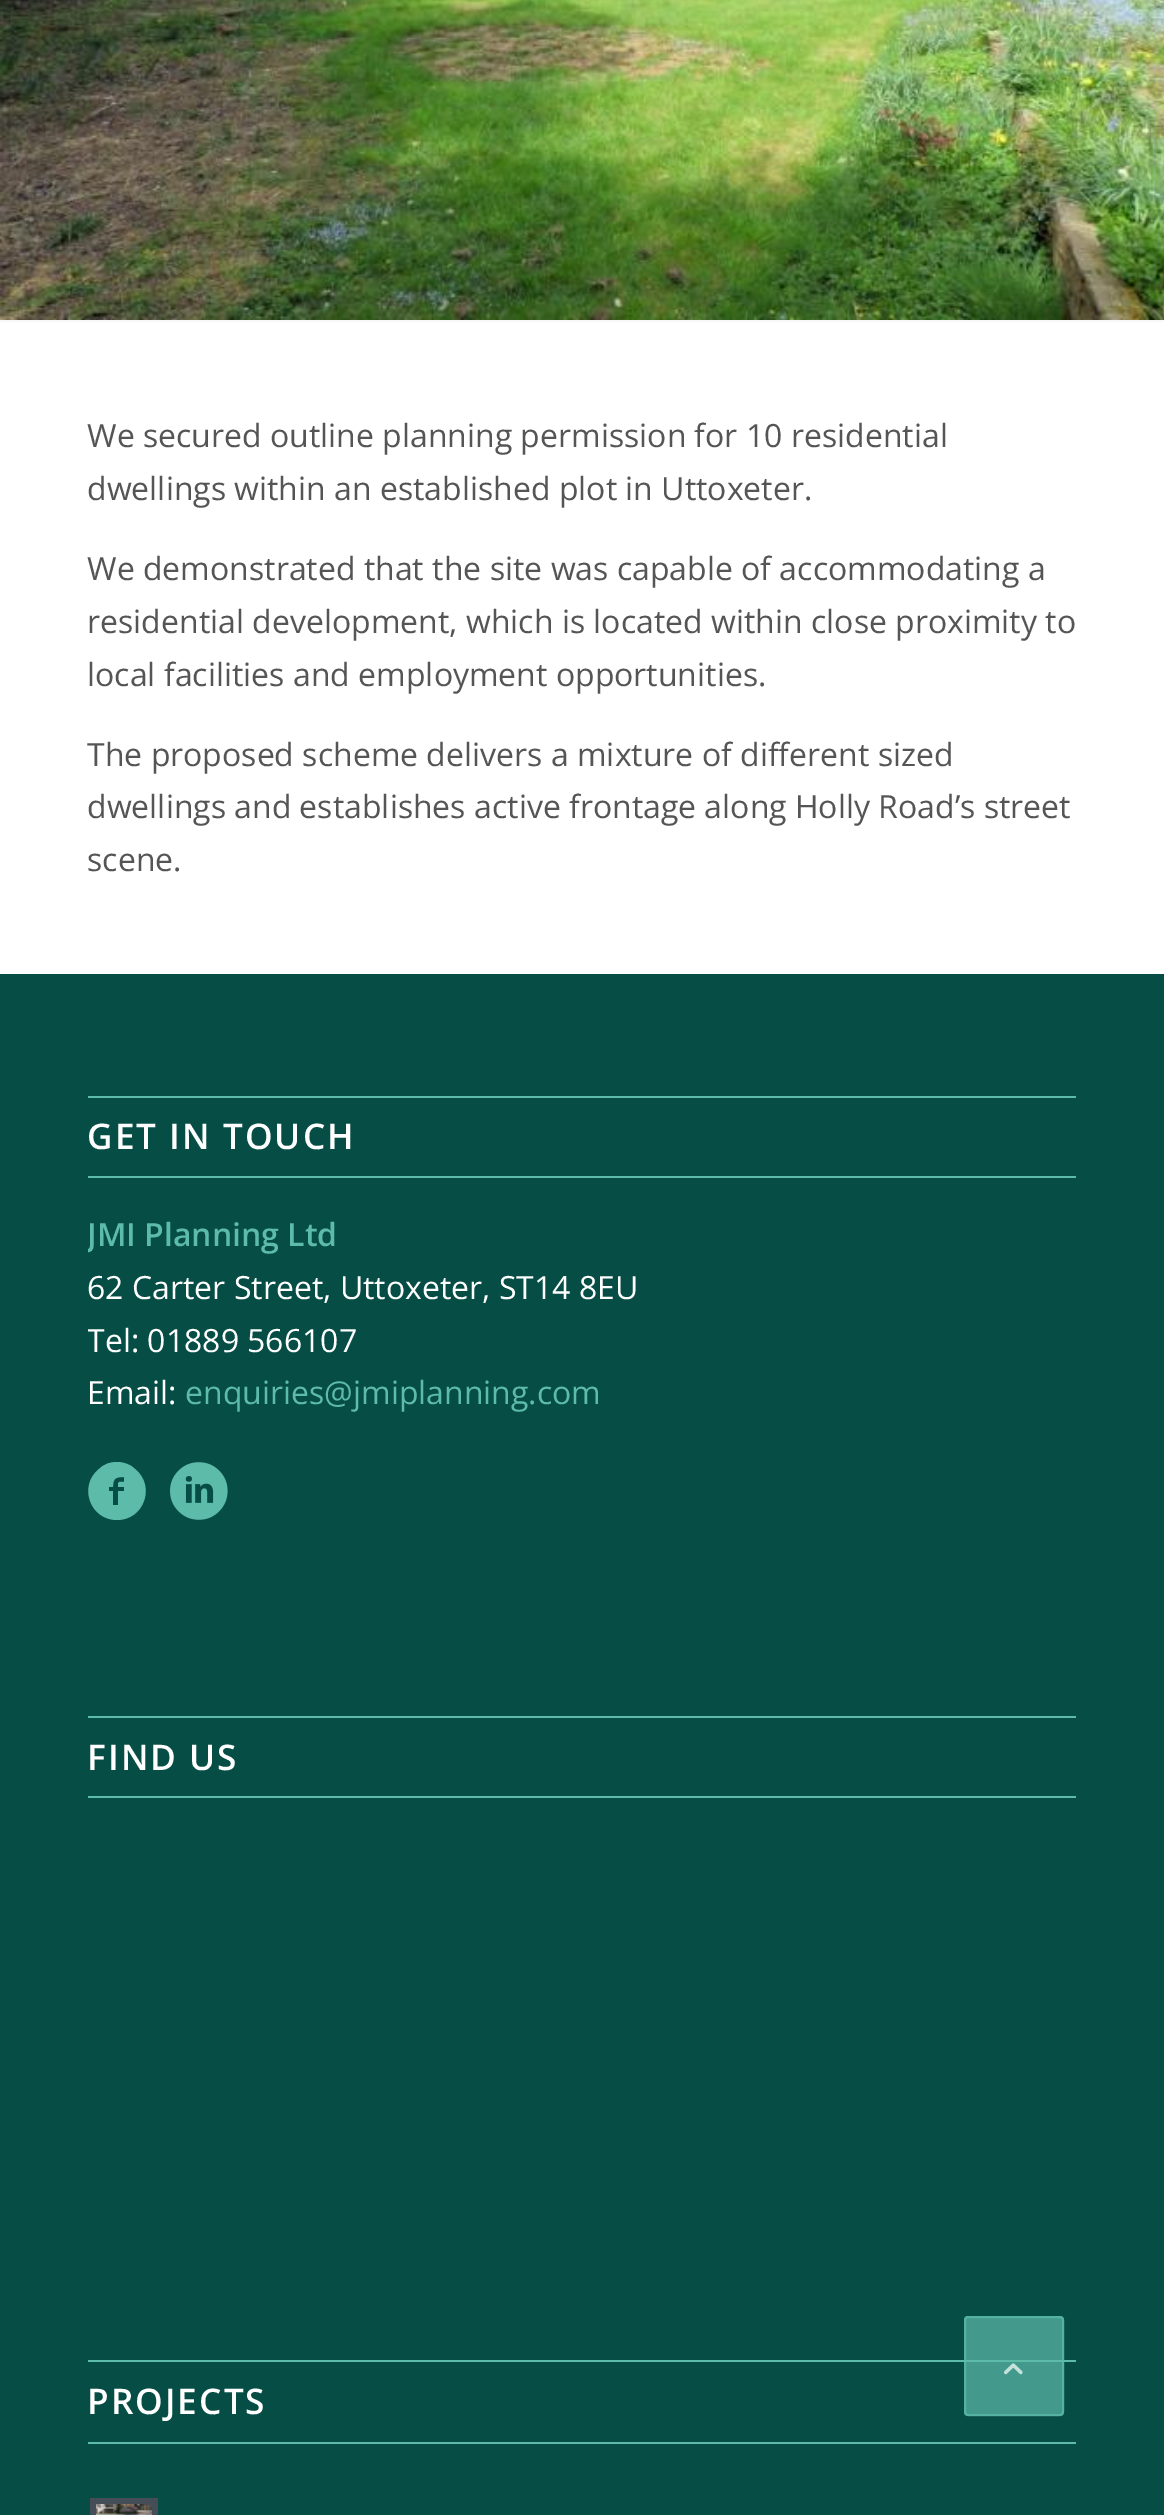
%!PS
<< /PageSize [1164 2515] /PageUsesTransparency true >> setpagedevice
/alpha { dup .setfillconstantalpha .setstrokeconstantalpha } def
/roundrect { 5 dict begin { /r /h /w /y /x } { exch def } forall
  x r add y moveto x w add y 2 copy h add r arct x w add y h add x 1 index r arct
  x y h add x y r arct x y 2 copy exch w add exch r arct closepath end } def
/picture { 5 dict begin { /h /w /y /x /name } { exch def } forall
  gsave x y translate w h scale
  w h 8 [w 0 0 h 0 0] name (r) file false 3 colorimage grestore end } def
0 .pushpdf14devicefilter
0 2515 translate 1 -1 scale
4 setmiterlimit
1 setgray
0 0 1164 2515 rectfill
(img1.rgb) 0 0 1164 320 picture
0.973 setgray
0 320 1164 2 rectfill
/OpenSans-Regular [32 0 0 -32 0 0] selectfont
0.333 setgray
87 447 moveto (We secured outline planning permission for 10 residential) show
87 500 moveto (dwellings within an established plot in Uttoxeter.) show
87 580 moveto (We demonstrated that the site was capable of accommodating a) show
87 633 moveto (residential development, which is located within close proximity to) show
87 686 moveto (local facilities and employment opportunities.) show
87 766 moveto (The proposed scheme delivers a mixture of different sized) show
87 818 moveto (dwellings and establishes active frontage along Holly Road’s street) show
87 871 moveto (scene.) show
0.024 0.302 0.271 setrgbcolor
0 974 1164 1541 rectfill
0.365 0.733 0.667 setrgbcolor
88 1096 988 2 rectfill
88 1176 988 2 rectfill
/OpenSans-SemiBold [35.25 0 0 -35.25 0 0] selectfont
1 setgray
87 1149 moveto 2 0 (GET IN TOUCH) ashow
gsave
88 1066 988 460 rectclip
/OpenSans-SemiBold [32 0 0 -32 0 0] selectfont
0.365 0.733 0.667 setrgbcolor
87 1246 moveto (JMI Planning Ltd) show
grestore
/OpenSans-Regular [32 0 0 -32 0 0] selectfont
87 1299 moveto (62 Carter Street, Uttoxeter, ST14 8EU) show
gsave
88 1066 988 460 rectclip
87 1352 moveto (Tel: 01889 566107) show
grestore
87 1404 moveto (Email:) show
0.365 0.733 0.667 setrgbcolor
185 1404 moveto (enquiries@jmiplanning.com) show
newpath 117 1462 moveto 123 1462 130 1464 135 1469 curveto 156 1486 144 1520 117 1520 curveto 90 1520 78 1486 99 1469 curveto 104 1464 110 1462 117 1462 curveto closepath 124 1482 moveto 124 1477 lineto 116 1477 113 1478 113 1487 curveto 109 1487 lineto 109 1491 lineto 113 1491 lineto 113 1505 lineto 118 1505 lineto 118 1491 lineto 124 1491 lineto 124 1487 lineto 118 1487 lineto 118 1481 118 1482 124 1482 curveto closepath fill
(img2.rgb) 170 1462 58 58 picture
88 1716 988 2 rectfill
88 1796 988 2 rectfill
/OpenSans-SemiBold [35.25 0 0 -35.25 0 0] selectfont
1 setgray
87 1770 moveto 2 0 (FIND US) ashow
0.365 0.733 0.667 setrgbcolor
88 2360 988 2 rectfill
88 2442 988 2 rectfill
1 setgray
87 2414 moveto 2 0 (PROJECTS) ashow
0.271 0.306 0.341 setrgbcolor
90 2498 68 17 rectfill
(img3.rgb) 96 2504 56 11 picture
0.7 alpha
0.365 0.733 0.667 setrgbcolor
964 2316 100 100 4 roundrect fill
2 setlinewidth
965 2317 98 98 3 roundrect stroke
1 alpha
(img4.rgb) 1004 2363 19 12 picture
.poppdf14devicefilter showpage
